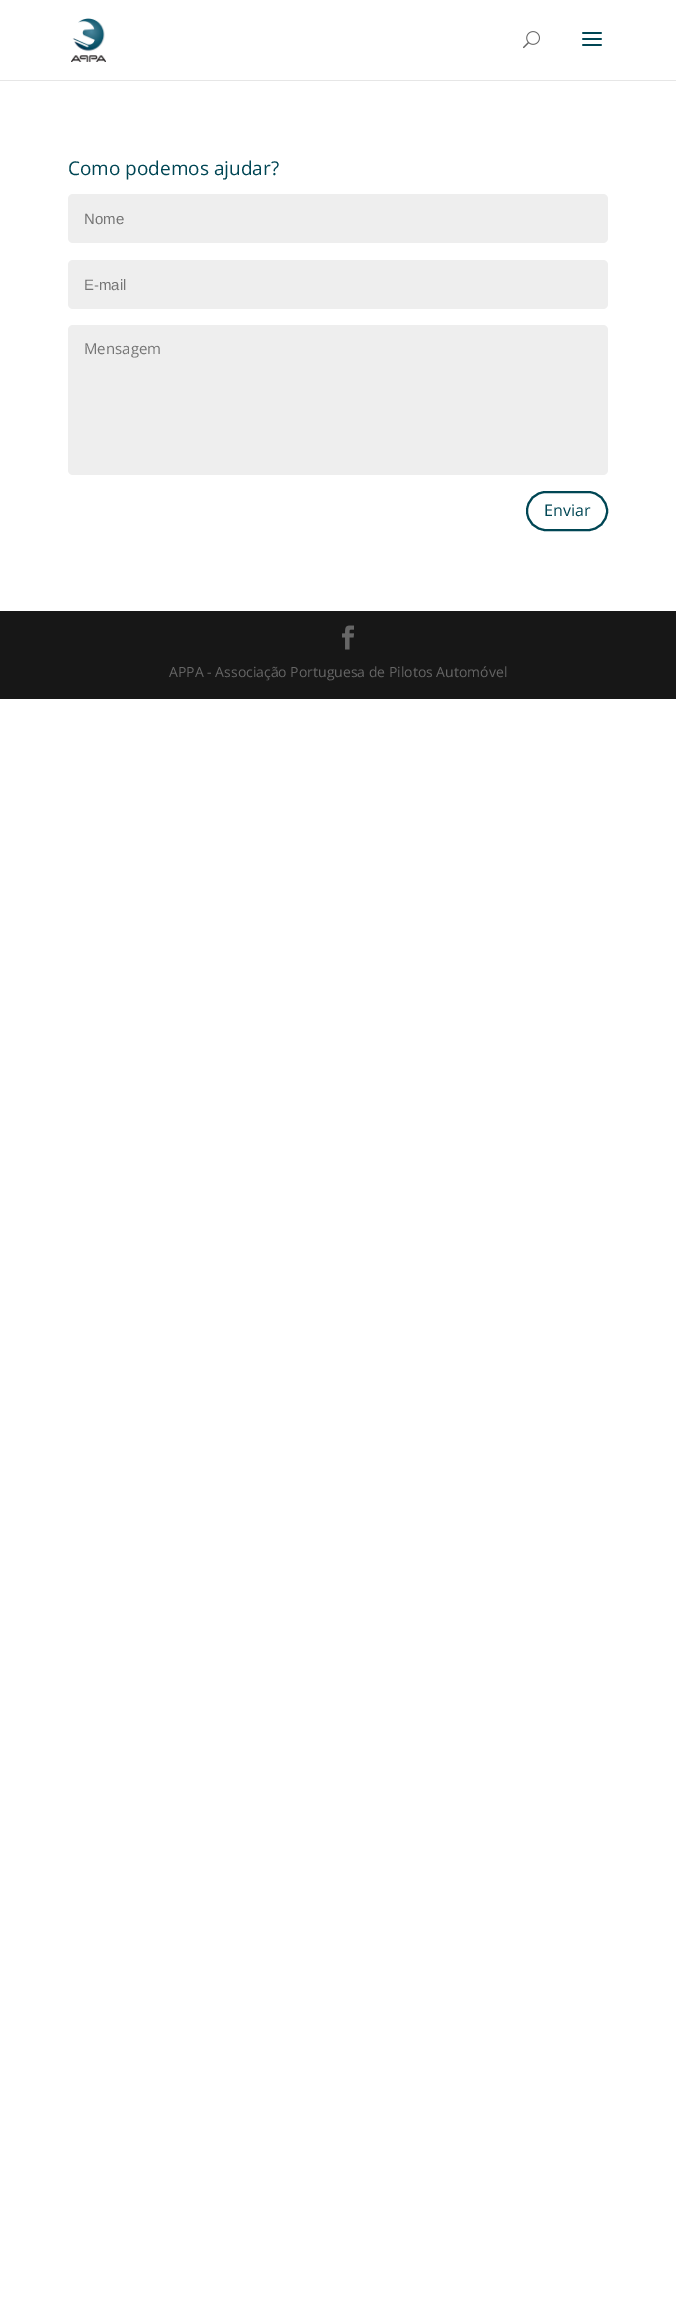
%!PS
<< /PageSize [676 2300] >> setpagedevice
/roundrect { 5 dict begin { /r /h /w /y /x } { exch def } forall
  x r add y moveto x w add y 2 copy h add r arct x w add y h add x 1 index r arct
  x y h add x y r arct x y 2 copy exch w add exch r arct closepath end } def
/picture { 5 dict begin { /h /w /y /x /name } { exch def } forall
  gsave x y translate w h scale
  w h 8 [w 0 0 h 0 0] name (r) file false 3 colorimage grestore end } def
0 2300 translate 1 -1 scale
4 setmiterlimit
1 setgray
0 0 676 2300 rectfill
0.902 setgray
0 80 676 1 rectfill
(img1.rgb) 71 18 35 44 picture
(img2.rgb) 523 31 17 18 picture
(img3.rgb) 582 32 20 14 picture
/OpenSans-Regular [19 0 0 -19 0 0] selectfont
0 0.275 0.329 setrgbcolor
68 175 moveto (Como podemos ajudar?) show
0.933 setgray
68 194 540 49 5 roundrect fill
/LiberationSans-Regular [15 0 0 -15 0 0] selectfont
0.459 setgray
84 224 moveto (Nome) show
0.933 setgray
68 260 540 49 5 roundrect fill
0.459 setgray
84 290 moveto (E-mail) show
0.933 setgray
68 325 540 150 5 roundrect fill
/OpenSans-Regular [15 0 0 -15 0 0] selectfont
0.459 setgray
84 354 moveto (Mensagem) show
0 0.275 0.329 setrgbcolor
2 setlinewidth
527 492 80 38 19 roundrect stroke
/OpenSans-Regular [16 0 0 -16 0 0] selectfont
544 516 moveto (Enviar) show
0.09 setgray
0 611 676 88 rectfill
(img4.rgb) 342 625 12 25 picture
/OpenSans-Regular [14 0 0 -14 0 0] selectfont
0.4 setgray
169 677 moveto (APPA - Associação Portuguesa de Pilotos Automóvel) show
showpage
